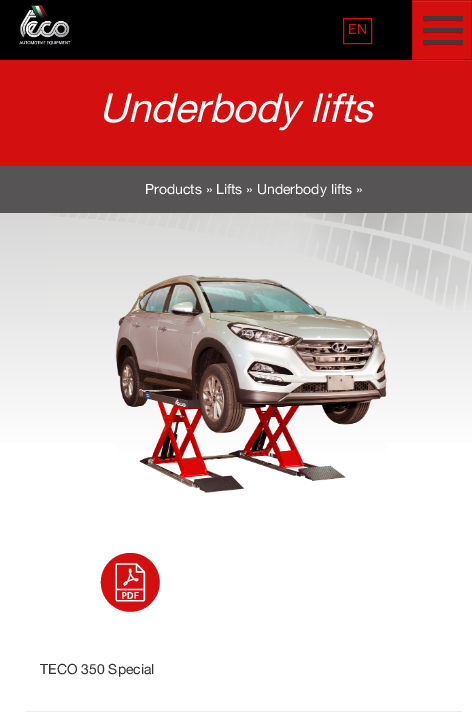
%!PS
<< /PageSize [472 728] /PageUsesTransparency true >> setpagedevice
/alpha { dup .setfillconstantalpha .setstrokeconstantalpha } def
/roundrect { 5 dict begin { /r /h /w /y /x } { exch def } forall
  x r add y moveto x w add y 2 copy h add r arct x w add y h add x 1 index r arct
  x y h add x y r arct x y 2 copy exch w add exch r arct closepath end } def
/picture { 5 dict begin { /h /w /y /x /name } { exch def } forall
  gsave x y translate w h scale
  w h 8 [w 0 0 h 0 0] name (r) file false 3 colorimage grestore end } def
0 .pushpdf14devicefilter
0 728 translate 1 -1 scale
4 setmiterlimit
1 setgray
0 0 472 728 rectfill
gsave newpath 0 213 moveto 472 213 lineto 472 443 lineto 0 443 lineto closepath clip newpath
<< /ShadingType 2 /ColorSpace /DeviceRGB /Coords [236 0 236 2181] /Extend [true true] /Function << /FunctionType 3 /Domain [0 1] /Functions [<< /FunctionType 2 /Domain [0 1] /C0 [0.71 0.71 0.706] /C1 [1 1 1] /N 1 >> << /FunctionType 2 /Domain [0 1] /C0 [1 1 1] /C1 [1 1 1] /N 1 >>] /Bounds [0.21] /Encode [0 1 0 1] >> >> shfill grestore
0 setgray
0 0 412 60 rectfill
(img1.rgb) 19 5 52 40 picture
0.827 0.059 0.063 setrgbcolor
0 60 472 106 rectfill
0.839 0.129 0.133 setrgbcolor
412 60 60 1 rectfill
0.835 0.059 0.055 setrgbcolor
412 0 60 60 rectfill
0.851 0.153 0.149 setrgbcolor
413 1 58 1 rectfill
0.753 0.055 0.051 setrgbcolor
newpath 412 0 moveto 472 0 lineto 471 1 lineto 413 1 lineto closepath fill
0.1 alpha
0 setgray
newpath 472 0 moveto 472 60 lineto 471 59 lineto 471 1 lineto closepath fill
0.25 alpha
newpath 472 60 moveto 412 60 lineto 413 59 lineto 471 59 lineto closepath fill
0.1 alpha
newpath 412 60 moveto 412 0 lineto 413 1 lineto 413 59 lineto closepath fill
1 alpha
0.627 0.043 0.043 setrgbcolor
newpath 423 19 moveto 423 23 427 21 430 21 curveto 456 21 lineto 459 21 463 23 463 19 curveto 463 20 lineto 430 20 lineto 428 20 423 21 423 19 curveto closepath fill
0.239 0.231 0.235 setrgbcolor
423 16 40 4 1 roundrect fill
0.627 0.043 0.043 setrgbcolor
newpath 423 31 moveto 423 35 427 33 430 33 curveto 456 33 lineto 459 33 463 35 463 31 curveto 463 32 lineto 430 32 lineto 428 32 423 33 423 31 curveto closepath fill
0.239 0.231 0.235 setrgbcolor
423 28 40 4 1 roundrect fill
0.627 0.043 0.043 setrgbcolor
newpath 423 43 moveto 423 47 427 45 430 45 curveto 456 45 lineto 459 45 463 47 463 43 curveto 463 44 lineto 430 44 lineto 428 44 423 45 423 43 curveto closepath fill
0.239 0.231 0.235 setrgbcolor
423 40 40 4 1 roundrect fill
0.835 0.059 0.055 setrgbcolor
343.5 18.5 28 25 rectstroke
/HelveticaNeue-Regular [14 0 0 -14 0 0] selectfont
348 34 moveto (EN) show
/HelveticaNeue-Italic [40 0 0 -40 0 0] selectfont
1 setgray
99 122 moveto (Underbody lifts) show
(img2.rgb) 49 213 423 97 picture
0.337 0.329 0.333 setrgbcolor
0 166 472 47 rectfill
/HelveticaNeue-Regular [14 0 0 -14 0 0] selectfont
1 setgray
145 194 moveto (Products » Lifts » Underbody lifts ») show
(img3.rgb) 115 275 272 218 picture
(img4.rgb) 100 553 60 59 picture
0.2 setgray
40 674 moveto (TECO 350 Special) show
0.933 setgray
25 711 437 1 rectfill
.poppdf14devicefilter showpage
